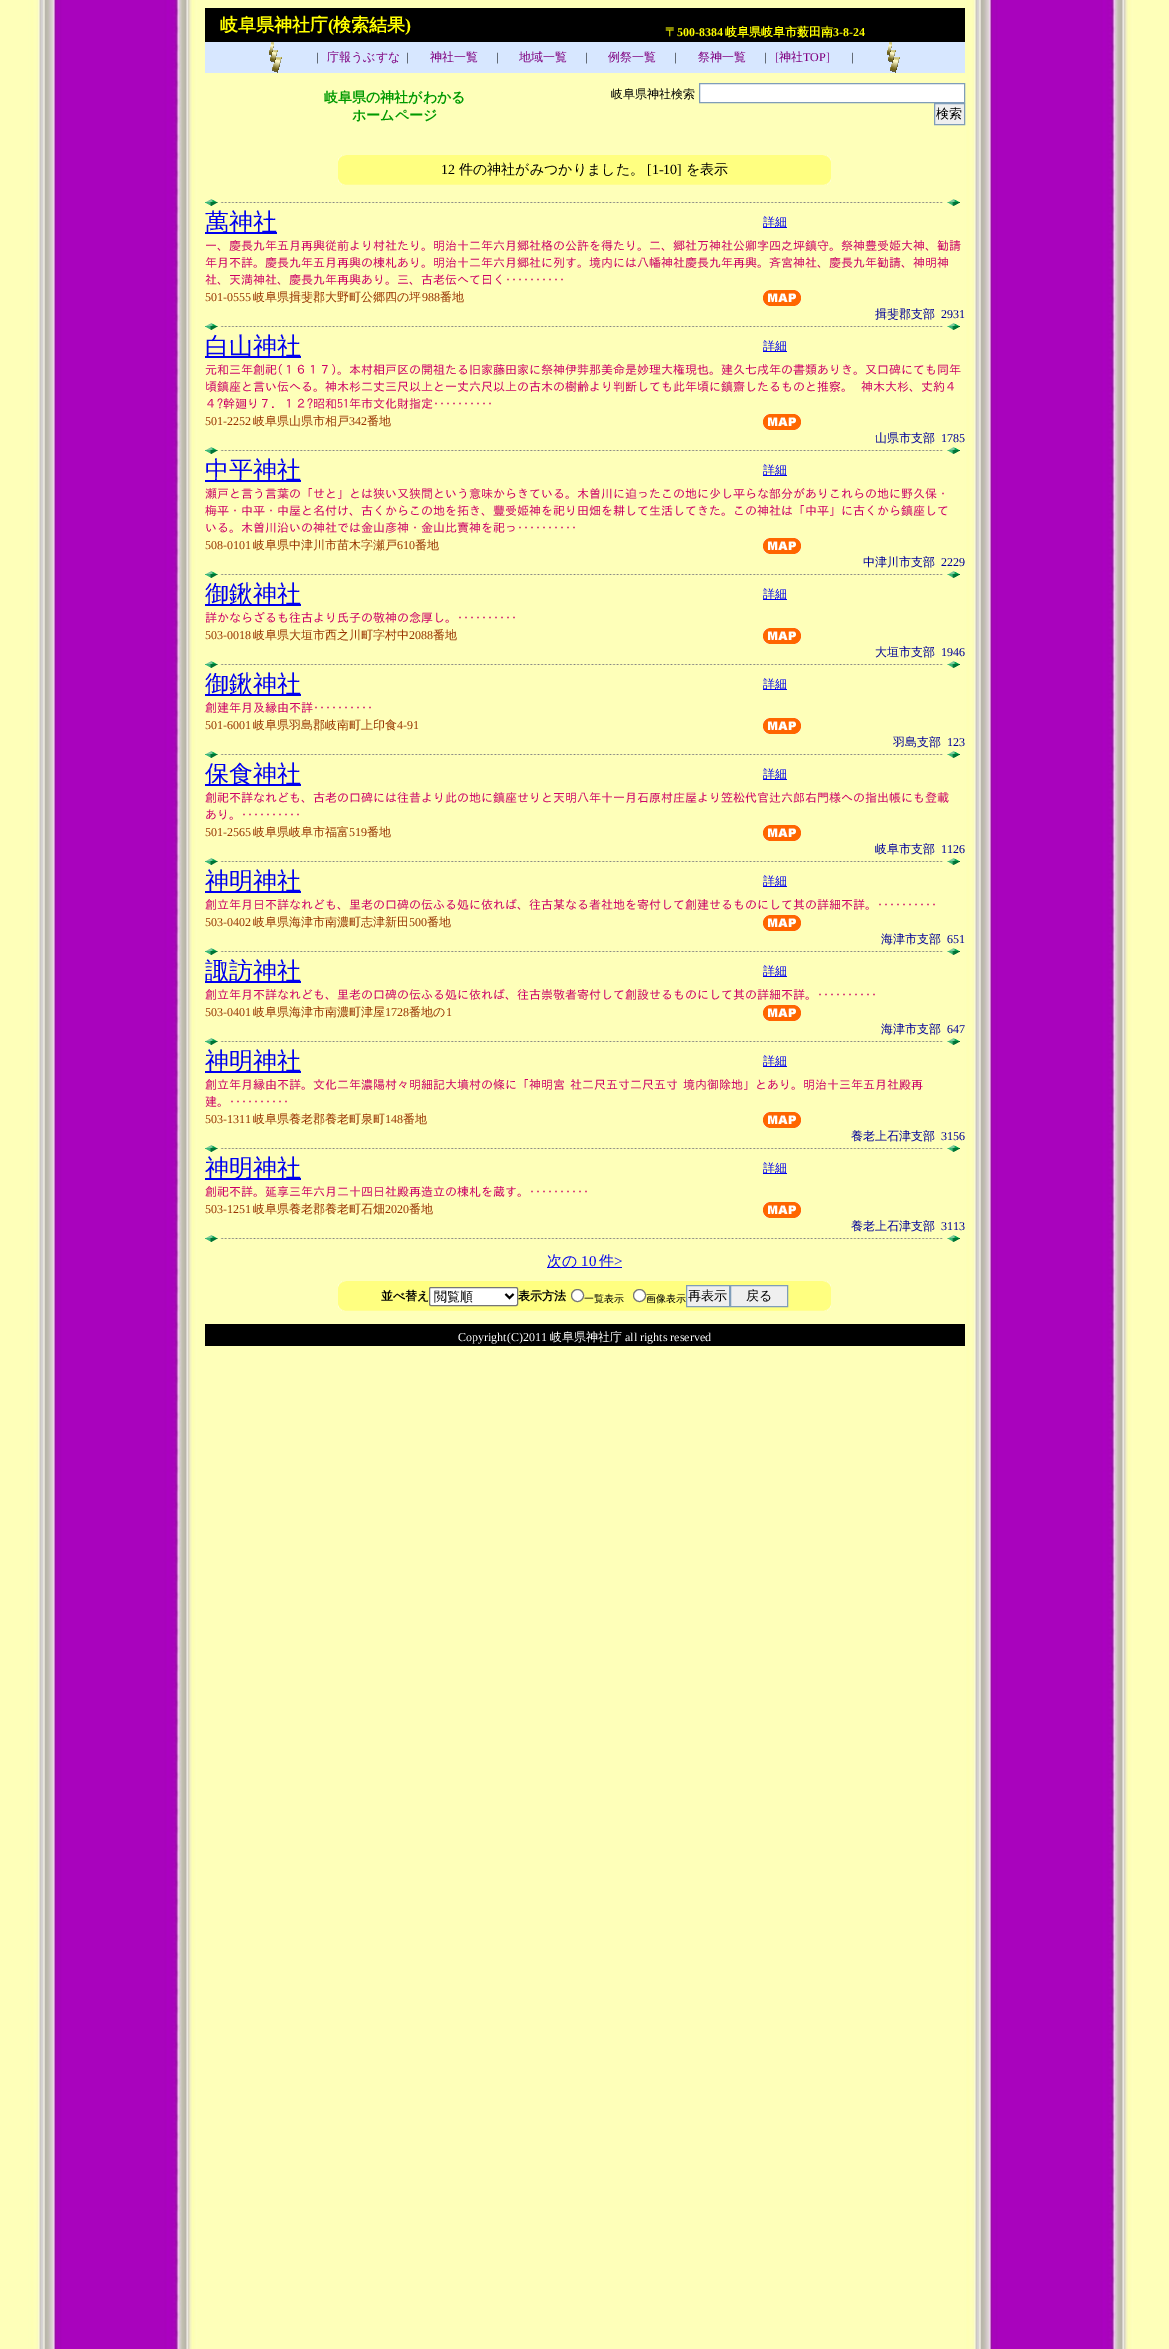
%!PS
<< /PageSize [1169 2349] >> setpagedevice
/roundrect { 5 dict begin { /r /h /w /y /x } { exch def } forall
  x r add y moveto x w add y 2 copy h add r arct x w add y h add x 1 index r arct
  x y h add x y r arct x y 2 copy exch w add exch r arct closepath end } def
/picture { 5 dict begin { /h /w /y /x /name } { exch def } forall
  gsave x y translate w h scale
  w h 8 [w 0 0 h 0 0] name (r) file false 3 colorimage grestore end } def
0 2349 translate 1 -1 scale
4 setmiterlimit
1 setgray
0 0 1169 2349 rectfill
(img1.rgb) 0 0 1169 2349 picture
0 setgray
205 8 760 34 rectfill
/WenQuanYiZenHei-Bold [18 0 0 -18 0 0] selectfont
1 1 0 setrgbcolor
220 31 moveto (岐阜県神社庁) show
/LiberationSerif-Bold [18 0 0 -18 0 0] selectfont
328 31 moveto (\() show
/WenQuanYiZenHei-Bold [18 0 0 -18 0 0] selectfont
333 31 moveto (検索結果) show
/LiberationSerif-Bold [18 0 0 -18 0 0] selectfont
405 31 moveto (\)) show
/WenQuanYiZenHei-Bold [12 0 0 -12 0 0] selectfont
665 36 moveto (〒) show
/LiberationSerif-Bold [12 0 0 -12 0 0] selectfont
677 36 moveto (500-8384) show
/WenQuanYiZenHei-Bold [12 0 0 -12 0 0] selectfont
725 36 moveto (岐阜県岐阜市薮田南) show
/LiberationSerif-Bold [12 0 0 -12 0 0] selectfont
833 36 moveto (3-8-24) show
0.843 0.906 1 setrgbcolor
205 42 760 31 rectfill
(img2.rgb) 269 42 13 31 picture
/LiberationSerif-Regular [12 0 0 -12 0 0] selectfont
0 setgray
316 61 moveto (|) show
/WenQuanYiZenHei-Medium [12 0 0 -12 0 0] selectfont
0.502 0 0.502 setrgbcolor
327 61 moveto (庁報うぶすな) show
/LiberationSerif-Regular [12 0 0 -12 0 0] selectfont
0 setgray
406 61 moveto (|) show
/WenQuanYiZenHei-Medium [12 0 0 -12 0 0] selectfont
0.502 0 0.502 setrgbcolor
430 61 moveto (神社一覧) show
/LiberationSerif-Regular [12 0 0 -12 0 0] selectfont
0 setgray
496 61 moveto (|) show
/WenQuanYiZenHei-Medium [12 0 0 -12 0 0] selectfont
0.502 0 0.502 setrgbcolor
519 61 moveto (地域一覧) show
/LiberationSerif-Regular [12 0 0 -12 0 0] selectfont
0 setgray
585 61 moveto (|) show
/WenQuanYiZenHei-Medium [12 0 0 -12 0 0] selectfont
0.502 0 0.502 setrgbcolor
608 61 moveto (例祭一覧) show
/LiberationSerif-Regular [12 0 0 -12 0 0] selectfont
0 setgray
674 61 moveto (|) show
/WenQuanYiZenHei-Medium [12 0 0 -12 0 0] selectfont
0.502 0 0.502 setrgbcolor
698 61 moveto (祭神一覧) show
/LiberationSerif-Regular [12 0 0 -12 0 0] selectfont
0 setgray
764 61 moveto (|) show
0.502 0 0.502 setrgbcolor
775 61 moveto ([) show
/WenQuanYiZenHei-Medium [12 0 0 -12 0 0] selectfont
779 61 moveto (神社) show
/LiberationSerif-Regular [12 0 0 -12 0 0] selectfont
803 61 moveto (TOP]) show
0 setgray
851 61 moveto (|) show
(img2.rgb) 887 42 13 31 picture
/WenQuanYiZenHei-Bold [14 0 0 -14 0 0] selectfont
0 0.6 0 setrgbcolor
324 102 moveto (岐阜県の神社がわかる) show
352 120 moveto (ホームページ) show
/WenQuanYiZenHei-Medium [12 0 0 -12 0 0] selectfont
0 setgray
611 98 moveto (岐阜県神社検索) show
1 setgray
newpath 699.5 83.5 moveto 964.5 83.5 lineto 964.5 102.5 lineto 699.5 102.5 lineto closepath gsave fill grestore
0.498 0.616 0.725 setrgbcolor
stroke
0.937 setgray
newpath 934.5 103.5 moveto 964.5 103.5 lineto 964.5 124.5 lineto 934.5 124.5 lineto closepath gsave fill grestore
0.498 0.616 0.725 setrgbcolor
stroke
/WenQuanYiZenHei-Medium [13 0 0 -13 0 0] selectfont
0 setgray
936 118 moveto (検索) show
(img3.rgb) 338 155 493 30 picture
/LiberationSerif-Regular [14 0 0 -14 0 0] selectfont
441 174 moveto (12) show
/WenQuanYiZenHei-Medium [14 0 0 -14 0 0] selectfont
459 174 moveto (件の神社がみつかりました。) show
/LiberationSerif-Regular [14 0 0 -14 0 0] selectfont
647 174 moveto ([1-10]) show
/WenQuanYiZenHei-Medium [14 0 0 -14 0 0] selectfont
686 174 moveto (を表示) show
(img4.rgb) 205 199 755 7 picture
0 0 0.933 setrgbcolor
205 232 72 2 rectfill
/WenQuanYiZenHei-Medium [24 0 0 -24 0 0] selectfont
205 230 moveto (萬神社) show
763 227 24 1 rectfill
/WenQuanYiZenHei-Medium [12 0 0 -12 0 0] selectfont
763 226 moveto (詳細) show
/IPAGothic-Regular [12 0 0 -12 0 0] selectfont
0.8 0 0.4 setrgbcolor
205 250 moveto (一、慶長九年五月再興従前より村社たり。明治十二年六月郷社格の公許を得たり。二、郷社万神社公卿字四之坪鎮守。祭神豊受姫大神、勧請) show
205 267 moveto (年月不詳。慶長九年五月再興の棟札あり。明治十二年六月郷社に列す。境内には八幡神社慶長九年再興。斉宮神社、慶長九年勧請、神明神) show
205 284 moveto (社、天満神社、慶長九年再興あり。三、古老伝へて曰く･･････････) show
/LiberationSerif-Regular [12 0 0 -12 0 0] selectfont
0.6 0.2 0 setrgbcolor
205 301 moveto (501-0555) show
/WenQuanYiZenHei-Medium [12 0 0 -12 0 0] selectfont
253 301 moveto (岐阜県揖斐郡大野町公郷四の坪) show
/LiberationSerif-Regular [12 0 0 -12 0 0] selectfont
422 301 moveto (988) show
/WenQuanYiZenHei-Medium [12 0 0 -12 0 0] selectfont
440 301 moveto (番地) show
(img5.rgb) 763 290 38 16 picture
0 0 0.6 setrgbcolor
875 318 moveto (揖斐郡支部) show
/LiberationSerif-Regular [12 0 0 -12 0 0] selectfont
941 318 moveto (2931) show
(img4.rgb) 205 323 755 7 picture
0 0 0.933 setrgbcolor
205 356 96 2 rectfill
/WenQuanYiZenHei-Medium [24 0 0 -24 0 0] selectfont
205 354 moveto (白山神社) show
763 351 24 1 rectfill
/WenQuanYiZenHei-Medium [12 0 0 -12 0 0] selectfont
763 350 moveto (詳細) show
/IPAGothic-Regular [12 0 0 -12 0 0] selectfont
0.8 0 0.4 setrgbcolor
205 374 moveto (元和三年創祀\(１６１７\)。本村相戸区の開祖たる旧家藤田家に祭神伊弉那美命是妙理大権現也。建久七戌年の書類ありき。又口碑にても同年) show
205 391 moveto 2 0 32 (頃鎮座と言い伝へる。神木杉二丈三尺以上と一丈六尺以上の古木の樹齢より判断しても此年頃に鎮齋したるものと推察。 神木大杉、丈約４) widthshow
205 408 moveto (４?幹廻り７．１２?昭和51年市文化財指定･･････････) show
/LiberationSerif-Regular [12 0 0 -12 0 0] selectfont
0.6 0.2 0 setrgbcolor
205 425 moveto (501-2252) show
/WenQuanYiZenHei-Medium [12 0 0 -12 0 0] selectfont
253 425 moveto (岐阜県山県市相戸) show
/LiberationSerif-Regular [12 0 0 -12 0 0] selectfont
349 425 moveto (342) show
/WenQuanYiZenHei-Medium [12 0 0 -12 0 0] selectfont
367 425 moveto (番地) show
(img5.rgb) 763 414 38 16 picture
0 0 0.6 setrgbcolor
875 442 moveto (山県市支部) show
/LiberationSerif-Regular [12 0 0 -12 0 0] selectfont
941 442 moveto (1785) show
(img4.rgb) 205 447 755 7 picture
0 0 0.933 setrgbcolor
205 480 96 2 rectfill
/WenQuanYiZenHei-Medium [24 0 0 -24 0 0] selectfont
205 478 moveto (中平神社) show
763 475 24 1 rectfill
/WenQuanYiZenHei-Medium [12 0 0 -12 0 0] selectfont
763 474 moveto (詳細) show
/IPAGothic-Regular [12 0 0 -12 0 0] selectfont
0.8 0 0.4 setrgbcolor
205 498 moveto (瀬戸と言う言葉の「せと」とは狭い又狭間という意味からきている。木曽川に迫ったこの地に少し平らな部分がありこれらの地に野久保・) show
205 515 moveto (梅平・中平・中屋と名付け、古くからこの地を拓き、豐受姫神を祀り田畑を耕して生活してきた。この神社は「中平」に古くから鎮座して) show
205 532 moveto (いる。木曽川沿いの神社では金山彦神・金山比賣神を祀っ･･････････) show
/LiberationSerif-Regular [12 0 0 -12 0 0] selectfont
0.6 0.2 0 setrgbcolor
205 549 moveto (508-0101) show
/WenQuanYiZenHei-Medium [12 0 0 -12 0 0] selectfont
253 549 moveto (岐阜県中津川市苗木字瀬戸) show
/LiberationSerif-Regular [12 0 0 -12 0 0] selectfont
397 549 moveto (610) show
/WenQuanYiZenHei-Medium [12 0 0 -12 0 0] selectfont
415 549 moveto (番地) show
(img5.rgb) 763 538 38 16 picture
0 0 0.6 setrgbcolor
863 566 moveto (中津川市支部) show
/LiberationSerif-Regular [12 0 0 -12 0 0] selectfont
941 566 moveto (2229) show
(img4.rgb) 205 571 755 7 picture
0 0 0.933 setrgbcolor
205 604 96 2 rectfill
/WenQuanYiZenHei-Medium [24 0 0 -24 0 0] selectfont
205 602 moveto (御鍬神社) show
763 599 24 1 rectfill
/WenQuanYiZenHei-Medium [12 0 0 -12 0 0] selectfont
763 598 moveto (詳細) show
/IPAGothic-Regular [12 0 0 -12 0 0] selectfont
0.8 0 0.4 setrgbcolor
205 622 moveto (詳かならざるも往古より氏子の敬神の念厚し。･･････････) show
/LiberationSerif-Regular [12 0 0 -12 0 0] selectfont
0.6 0.2 0 setrgbcolor
205 639 moveto (503-0018) show
/WenQuanYiZenHei-Medium [12 0 0 -12 0 0] selectfont
253 639 moveto (岐阜県大垣市西之川町字村中) show
/LiberationSerif-Regular [12 0 0 -12 0 0] selectfont
409 639 moveto (2088) show
/WenQuanYiZenHei-Medium [12 0 0 -12 0 0] selectfont
433 639 moveto (番地) show
(img5.rgb) 763 628 38 16 picture
0 0 0.6 setrgbcolor
875 656 moveto (大垣市支部) show
/LiberationSerif-Regular [12 0 0 -12 0 0] selectfont
941 656 moveto (1946) show
(img4.rgb) 205 661 755 7 picture
0 0 0.933 setrgbcolor
205 694 96 2 rectfill
/WenQuanYiZenHei-Medium [24 0 0 -24 0 0] selectfont
205 692 moveto (御鍬神社) show
763 689 24 1 rectfill
/WenQuanYiZenHei-Medium [12 0 0 -12 0 0] selectfont
763 688 moveto (詳細) show
/IPAGothic-Regular [12 0 0 -12 0 0] selectfont
0.8 0 0.4 setrgbcolor
205 712 moveto (創建年月及縁由不詳･･････････) show
/LiberationSerif-Regular [12 0 0 -12 0 0] selectfont
0.6 0.2 0 setrgbcolor
205 729 moveto (501-6001) show
/WenQuanYiZenHei-Medium [12 0 0 -12 0 0] selectfont
253 729 moveto (岐阜県羽島郡岐南町上印食) show
/LiberationSerif-Regular [12 0 0 -12 0 0] selectfont
397 729 moveto (4-91) show
(img5.rgb) 763 718 38 16 picture
/WenQuanYiZenHei-Medium [12 0 0 -12 0 0] selectfont
0 0 0.6 setrgbcolor
893 746 moveto (羽島支部) show
/LiberationSerif-Regular [12 0 0 -12 0 0] selectfont
947 746 moveto (123) show
(img4.rgb) 205 751 755 7 picture
0 0 0.933 setrgbcolor
205 784 96 2 rectfill
/WenQuanYiZenHei-Medium [24 0 0 -24 0 0] selectfont
205 782 moveto (保食神社) show
763 779 24 1 rectfill
/WenQuanYiZenHei-Medium [12 0 0 -12 0 0] selectfont
763 778 moveto (詳細) show
/IPAGothic-Regular [12 0 0 -12 0 0] selectfont
0.8 0 0.4 setrgbcolor
205 802 moveto (創祀不詳なれども、古老の口碑には往昔より此の地に鎮座せりと天明八年十一月石原村庄屋より笠松代官辻六郎右門様への指出帳にも登載) show
205 819 moveto (あり。･･････････) show
/LiberationSerif-Regular [12 0 0 -12 0 0] selectfont
0.6 0.2 0 setrgbcolor
205 836 moveto (501-2565) show
/WenQuanYiZenHei-Medium [12 0 0 -12 0 0] selectfont
253 836 moveto (岐阜県岐阜市福富) show
/LiberationSerif-Regular [12 0 0 -12 0 0] selectfont
349 836 moveto (519) show
/WenQuanYiZenHei-Medium [12 0 0 -12 0 0] selectfont
367 836 moveto (番地) show
(img5.rgb) 763 825 38 16 picture
0 0 0.6 setrgbcolor
875 853 moveto (岐阜市支部) show
/LiberationSerif-Regular [12 0 0 -12 0 0] selectfont
941 853 moveto (1126) show
(img4.rgb) 205 858 755 7 picture
0 0 0.933 setrgbcolor
205 891 96 2 rectfill
/WenQuanYiZenHei-Medium [24 0 0 -24 0 0] selectfont
205 889 moveto (神明神社) show
763 886 24 1 rectfill
/WenQuanYiZenHei-Medium [12 0 0 -12 0 0] selectfont
763 885 moveto (詳細) show
/IPAGothic-Regular [12 0 0 -12 0 0] selectfont
0.8 0 0.4 setrgbcolor
205 909 moveto (創立年月日不詳なれども、里老の口碑の伝ふる処に依れば、往古某なる者社地を寄付して創建せるものにして其の詳細不詳。･･････････) show
/LiberationSerif-Regular [12 0 0 -12 0 0] selectfont
0.6 0.2 0 setrgbcolor
205 926 moveto (503-0402) show
/WenQuanYiZenHei-Medium [12 0 0 -12 0 0] selectfont
253 926 moveto (岐阜県海津市南濃町志津新田) show
/LiberationSerif-Regular [12 0 0 -12 0 0] selectfont
409 926 moveto (500) show
/WenQuanYiZenHei-Medium [12 0 0 -12 0 0] selectfont
427 926 moveto (番地) show
(img5.rgb) 763 915 38 16 picture
0 0 0.6 setrgbcolor
881 943 moveto (海津市支部) show
/LiberationSerif-Regular [12 0 0 -12 0 0] selectfont
947 943 moveto (651) show
(img4.rgb) 205 948 755 7 picture
0 0 0.933 setrgbcolor
205 981 96 2 rectfill
/WenQuanYiZenHei-Medium [24 0 0 -24 0 0] selectfont
205 979 moveto (諏訪神社) show
763 976 24 1 rectfill
/WenQuanYiZenHei-Medium [12 0 0 -12 0 0] selectfont
763 975 moveto (詳細) show
/IPAGothic-Regular [12 0 0 -12 0 0] selectfont
0.8 0 0.4 setrgbcolor
205 999 moveto (創立年月不詳なれども、里老の口碑の伝ふる処に依れば、往古崇敬者寄付して創設せるものにして其の詳細不詳。･･････････) show
/LiberationSerif-Regular [12 0 0 -12 0 0] selectfont
0.6 0.2 0 setrgbcolor
205 1016 moveto (503-0401) show
/WenQuanYiZenHei-Medium [12 0 0 -12 0 0] selectfont
253 1016 moveto (岐阜県海津市南濃町津屋) show
/LiberationSerif-Regular [12 0 0 -12 0 0] selectfont
385 1016 moveto (1728) show
/WenQuanYiZenHei-Medium [12 0 0 -12 0 0] selectfont
409 1016 moveto (番地の) show
/LiberationSerif-Regular [12 0 0 -12 0 0] selectfont
446 1016 moveto (1) show
(img5.rgb) 763 1005 38 16 picture
/WenQuanYiZenHei-Medium [12 0 0 -12 0 0] selectfont
0 0 0.6 setrgbcolor
881 1033 moveto (海津市支部) show
/LiberationSerif-Regular [12 0 0 -12 0 0] selectfont
947 1033 moveto (647) show
(img4.rgb) 205 1038 755 7 picture
0 0 0.933 setrgbcolor
205 1071 96 2 rectfill
/WenQuanYiZenHei-Medium [24 0 0 -24 0 0] selectfont
205 1069 moveto (神明神社) show
763 1066 24 1 rectfill
/WenQuanYiZenHei-Medium [12 0 0 -12 0 0] selectfont
763 1065 moveto (詳細) show
/IPAGothic-Regular [12 0 0 -12 0 0] selectfont
0.8 0 0.4 setrgbcolor
205 1089 moveto -1 0 32 (創立年月縁由不詳。文化二年濃陽村々明細記大墳村の條に「神明宮 社二尺五寸二尺五寸 境内御除地」とあり。明治十三年五月社殿再) widthshow
205 1106 moveto (建。･･････････) show
/LiberationSerif-Regular [12 0 0 -12 0 0] selectfont
0.6 0.2 0 setrgbcolor
205 1123 moveto (503-1311) show
/WenQuanYiZenHei-Medium [12 0 0 -12 0 0] selectfont
253 1123 moveto (岐阜県養老郡養老町泉町) show
/LiberationSerif-Regular [12 0 0 -12 0 0] selectfont
385 1123 moveto (148) show
/WenQuanYiZenHei-Medium [12 0 0 -12 0 0] selectfont
403 1123 moveto (番地) show
(img5.rgb) 763 1112 38 16 picture
0 0 0.6 setrgbcolor
851 1140 moveto (養老上石津支部) show
/LiberationSerif-Regular [12 0 0 -12 0 0] selectfont
941 1140 moveto (3156) show
(img4.rgb) 205 1145 755 7 picture
0 0 0.933 setrgbcolor
205 1178 96 2 rectfill
/WenQuanYiZenHei-Medium [24 0 0 -24 0 0] selectfont
205 1176 moveto (神明神社) show
763 1173 24 1 rectfill
/WenQuanYiZenHei-Medium [12 0 0 -12 0 0] selectfont
763 1172 moveto (詳細) show
/IPAGothic-Regular [12 0 0 -12 0 0] selectfont
0.8 0 0.4 setrgbcolor
205 1196 moveto (創祀不詳。延享三年六月二十四日社殿再造立の棟札を蔵す。･･････････) show
/LiberationSerif-Regular [12 0 0 -12 0 0] selectfont
0.6 0.2 0 setrgbcolor
205 1213 moveto (503-1251) show
/WenQuanYiZenHei-Medium [12 0 0 -12 0 0] selectfont
253 1213 moveto (岐阜県養老郡養老町石畑) show
/LiberationSerif-Regular [12 0 0 -12 0 0] selectfont
385 1213 moveto (2020) show
/WenQuanYiZenHei-Medium [12 0 0 -12 0 0] selectfont
409 1213 moveto (番地) show
(img5.rgb) 763 1202 38 16 picture
0 0 0.6 setrgbcolor
851 1230 moveto (養老上石津支部) show
/LiberationSerif-Regular [12 0 0 -12 0 0] selectfont
941 1230 moveto (3113) show
(img4.rgb) 205 1235 755 7 picture
0 0 0.933 setrgbcolor
547 1267 75 1 rectfill
/WenQuanYiZenHei-Medium [15 0 0 -15 0 0] selectfont
547 1266 moveto (次の) show
/LiberationSerif-Regular [15 0 0 -15 0 0] selectfont
581 1266 moveto (10) show
/WenQuanYiZenHei-Medium [15 0 0 -15 0 0] selectfont
599 1266 moveto (件) show
/LiberationSerif-Regular [15 0 0 -15 0 0] selectfont
614 1266 moveto (>) show
(img3.rgb) 338 1281 493 30 picture
/WenQuanYiZenHei-Bold [12 0 0 -12 0 0] selectfont
0 setgray
381 1300 moveto (並べ替え) show
1 setgray
429.5 1287.5 88 18 1.5 roundrect gsave fill grestore
0.463 setgray
stroke
0 setgray
2 setlinewidth
newpath 505.5 1294 moveto 509.5 1298 lineto 513.5 1294 lineto stroke
/WenQuanYiZenHei-Medium [13 0 0 -13 0 0] selectfont
434 1301 moveto (閲覧順) show
/WenQuanYiZenHei-Bold [12 0 0 -12 0 0] selectfont
518 1300 moveto (表示方法) show
1 setgray
newpath 577.5 1295.5 6 0 360 arc closepath gsave fill grestore
0.463 setgray
1 setlinewidth
stroke
/WenQuanYiZenHei-Medium [10 0 0 -10 0 0] selectfont
0 setgray
584 1302 moveto (一覧表示) show
1 setgray
newpath 639.5 1295.5 6 0 360 arc closepath gsave fill grestore
0.463 setgray
stroke
0 setgray
646 1302 moveto (画像表示) show
0.937 setgray
newpath 686.5 1285.5 moveto 729.5 1285.5 lineto 729.5 1306.5 lineto 686.5 1306.5 lineto closepath gsave fill grestore
0.498 0.616 0.725 setrgbcolor
stroke
/WenQuanYiZenHei-Medium [13 0 0 -13 0 0] selectfont
0 setgray
688 1300 moveto (再表示) show
0.937 setgray
newpath 730.5 1285.5 moveto 787.5 1285.5 lineto 787.5 1306.5 lineto 730.5 1306.5 lineto closepath gsave fill grestore
0.498 0.616 0.725 setrgbcolor
stroke
0 setgray
746 1300 moveto (戻る) show
205 1324 760 22 rectfill
/LiberationSerif-Regular [12 0 0 -12 0 0] selectfont
1 setgray
458 1341 moveto (Copyright\(C\)2011) show
/WenQuanYiZenHei-Medium [12 0 0 -12 0 0] selectfont
550 1341 moveto (岐阜県神社庁) show
/LiberationSerif-Regular [12 0 0 -12 0 0] selectfont
625 1341 moveto (all rights reserved) show
showpage
